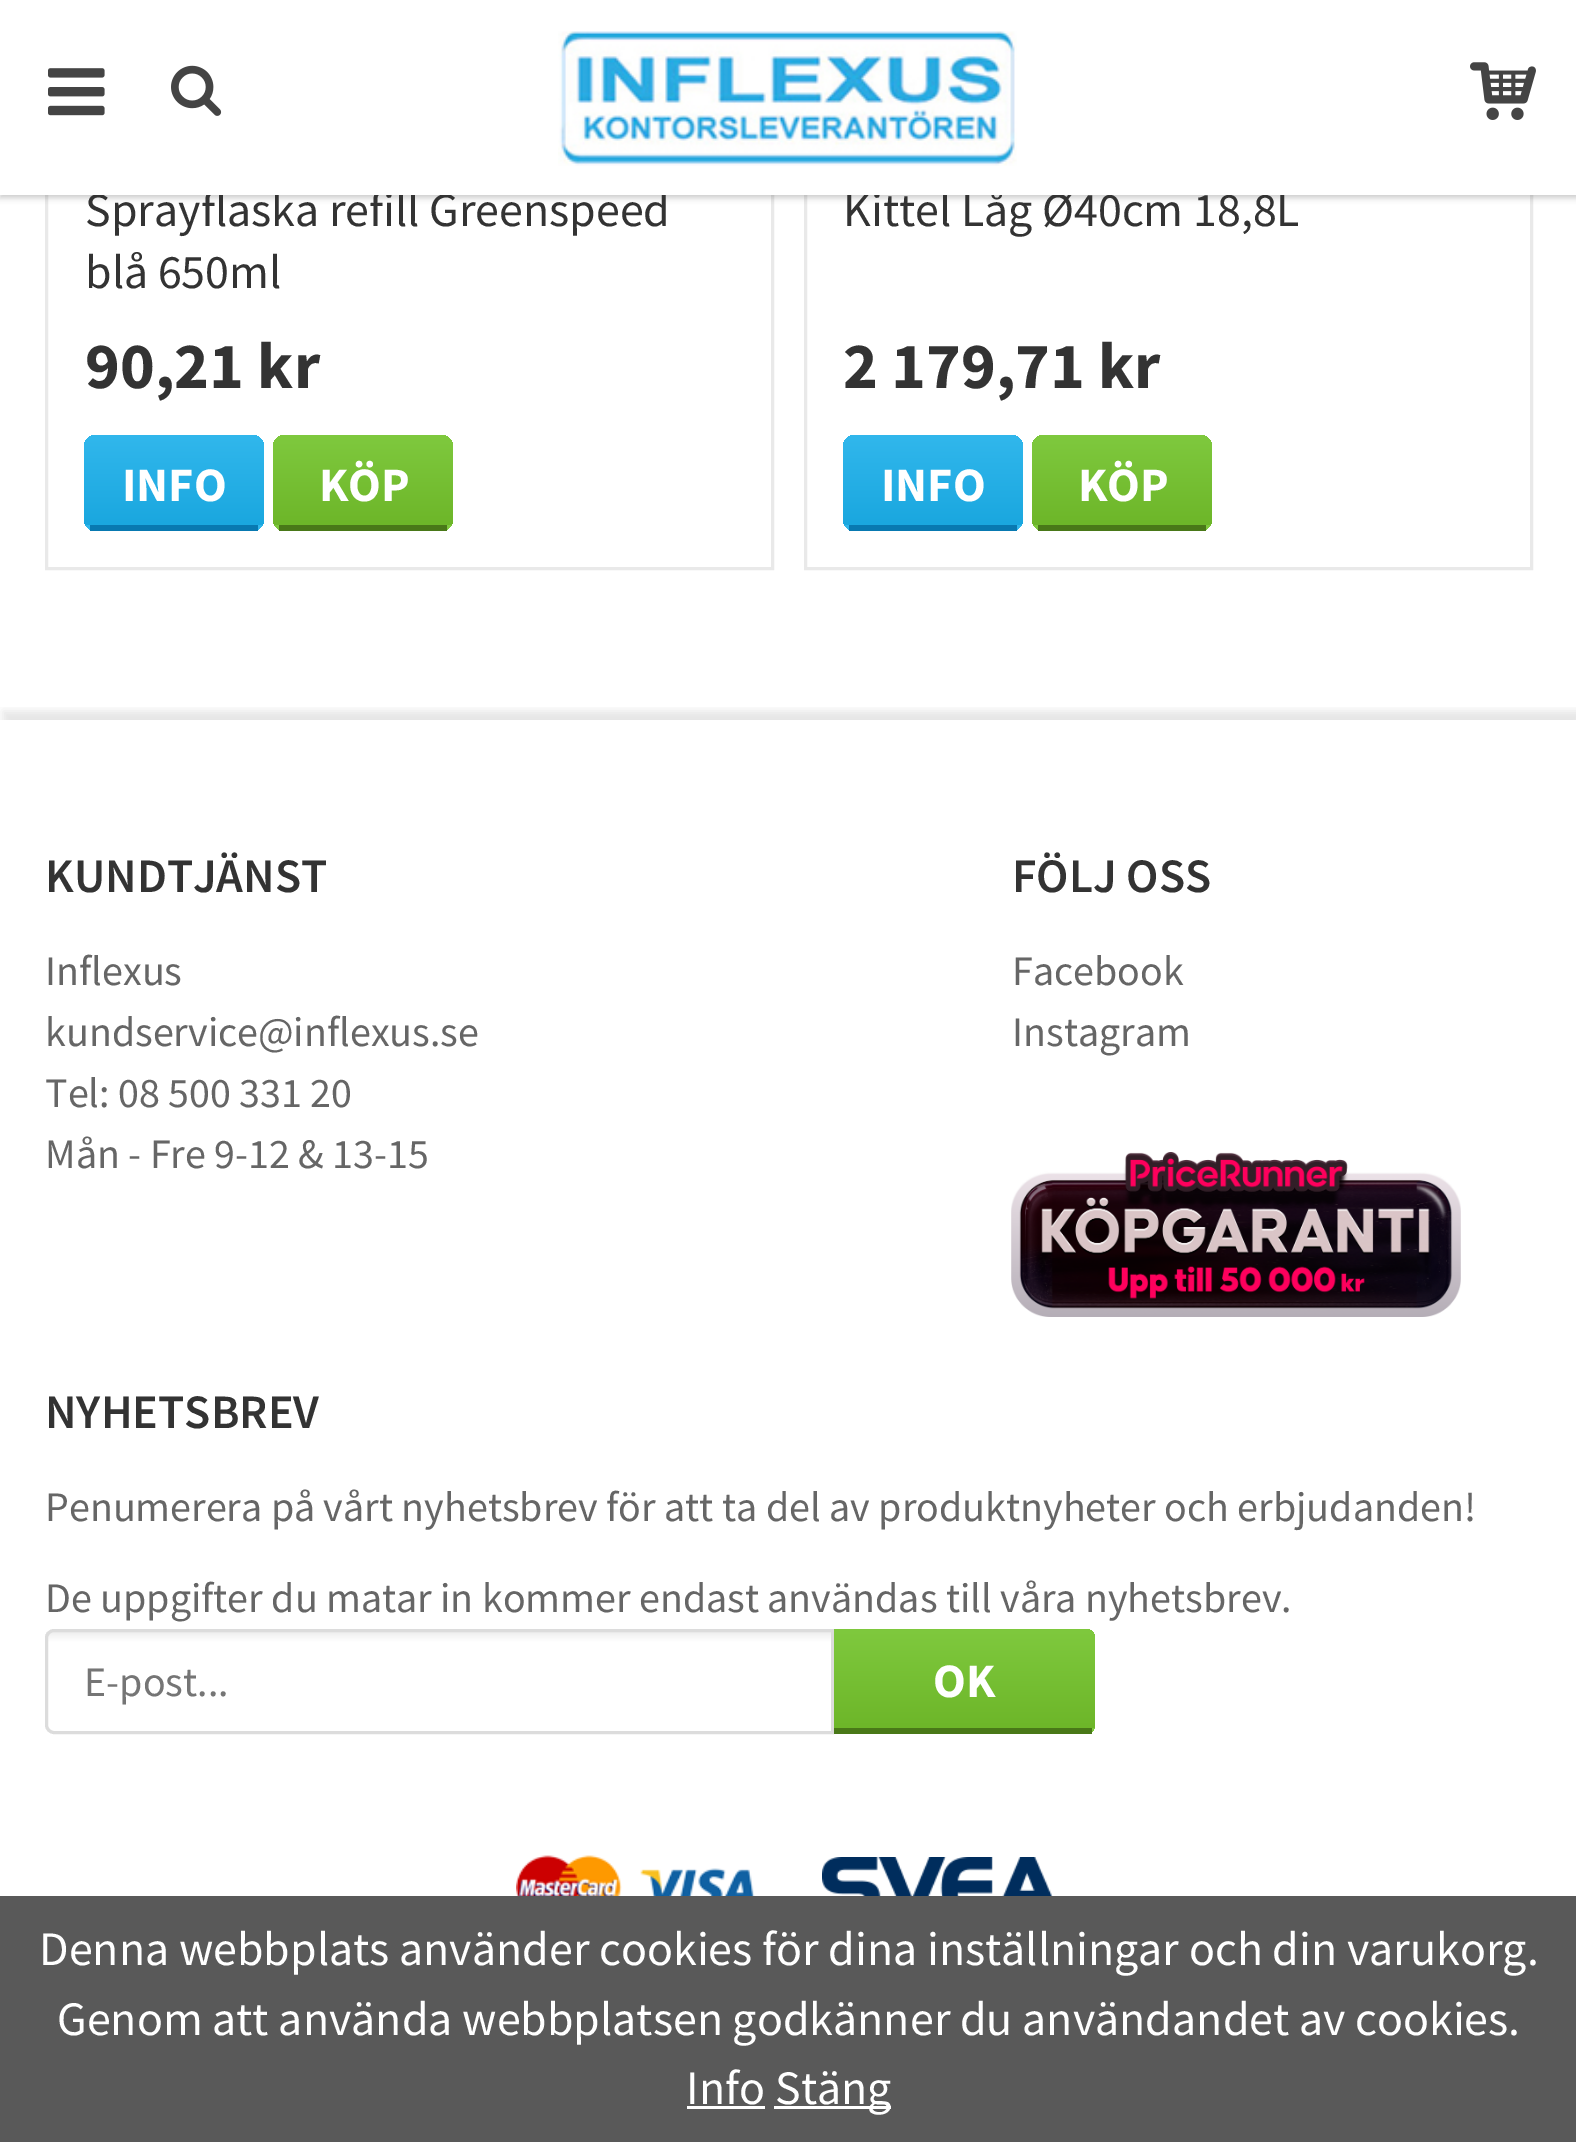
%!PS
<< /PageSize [1576 2142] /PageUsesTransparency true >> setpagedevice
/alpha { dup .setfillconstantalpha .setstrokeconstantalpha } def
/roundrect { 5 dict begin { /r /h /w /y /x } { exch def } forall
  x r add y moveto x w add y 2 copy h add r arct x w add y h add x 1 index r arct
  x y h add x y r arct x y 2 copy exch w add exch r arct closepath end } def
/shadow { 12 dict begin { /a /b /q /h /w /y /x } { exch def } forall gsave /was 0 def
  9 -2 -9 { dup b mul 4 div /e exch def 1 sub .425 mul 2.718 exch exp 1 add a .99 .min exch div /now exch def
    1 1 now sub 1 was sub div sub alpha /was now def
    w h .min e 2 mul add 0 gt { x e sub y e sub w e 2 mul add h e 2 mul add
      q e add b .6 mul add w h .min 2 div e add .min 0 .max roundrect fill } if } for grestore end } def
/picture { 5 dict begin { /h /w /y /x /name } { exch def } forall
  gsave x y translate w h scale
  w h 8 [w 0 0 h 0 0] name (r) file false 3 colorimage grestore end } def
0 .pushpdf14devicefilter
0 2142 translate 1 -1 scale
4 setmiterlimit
1 setgray
0 0 1576 2142 rectfill
0.914 setgray
3 setlinewidth
46.5 -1.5 726 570 rectstroke
805.5 -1.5 726 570 rectstroke
0 setgray
0 3 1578 195 0 3 0.2 shadow
/SourceSansPro-Regular [48 0 0 -48 0 0] selectfont
0.2 setgray
85 226 moveto (Sprayflaska refill Greenspeed) show
843 226 moveto (Kittel Låg Ø40cm 18,8L) show
1 setgray
0 0 1576 195 rectfill
(img1.rgb) 48 68 57 48 picture
(img2.rgb) 171 65 51 51 picture
(img3.rgb) 558 31 459 135 picture
(img4.rgb) 1470 62 66 58 picture
0.2 setgray
85 288 moveto (blå 650ml) show
/SourceSansPro-Bold [66 0 0 -66 0 0] selectfont
85 388 moveto (90,21 kr) show
0.122 0.667 0.882 setrgbcolor
84 435 180 96 12 roundrect fill
gsave
84 435 180 96 12 roundrect clip newpath
gsave newpath 96 435 moveto 252 435 lineto 258.5 435 264 440.5 264 447 curveto 264 525 lineto 84 525 lineto 84 447 lineto 84 440.5 89.5 435 96 435 curveto closepath clip newpath
<< /ShadingType 2 /ColorSpace /DeviceRGB /Coords [174 435 174 525] /Extend [true true] /Function << /FunctionType 2 /Domain [0 1] /C0 [0.192 0.718 0.925] /C1 [0.102 0.655 0.875] /N 1 >> >> shfill grestore
gsave newpath 84 525 moveto 264 525 lineto 264 530 lineto 84 530 lineto closepath clip newpath
<< /ShadingType 2 /ColorSpace /DeviceRGB /Coords [174 525 174 615] /Extend [true true] /Function << /FunctionType 2 /Domain [0 1] /C0 [0.192 0.718 0.925] /C1 [0.102 0.655 0.875] /N 1 >> >> shfill grestore
grestore
0.031 0.475 0.694 setrgbcolor
90 525 168 6 rectfill
/SourceSansPro-Bold [48 0 0 -48 0 0] selectfont
1 setgray
122 501 moveto (INFO) show
0.451 0.737 0.184 setrgbcolor
273 435 180 96 12 roundrect fill
gsave
273 435 180 96 12 roundrect clip newpath
gsave newpath 285 435 moveto 441 435 lineto 447.5 435 453 440.5 453 447 curveto 453 525 lineto 273 525 lineto 273 447 lineto 273 440.5 278.5 435 285 435 curveto closepath clip newpath
<< /ShadingType 2 /ColorSpace /DeviceRGB /Coords [363 435 363 525] /Extend [true true] /Function << /FunctionType 2 /Domain [0 1] /C0 [0.498 0.788 0.243] /C1 [0.427 0.714 0.161] /N 1 >> >> shfill grestore
gsave newpath 273 525 moveto 453 525 lineto 453 530 lineto 273 530 lineto closepath clip newpath
<< /ShadingType 2 /ColorSpace /DeviceRGB /Coords [363 525 363 615] /Extend [true true] /Function << /FunctionType 2 /Domain [0 1] /C0 [0.498 0.788 0.243] /C1 [0.427 0.714 0.161] /N 1 >> >> shfill grestore
grestore
0.286 0.471 0.094 setrgbcolor
279 525 168 6 rectfill
1 setgray
319 501 moveto (KÖP) show
/SourceSansPro-Bold [66 0 0 -66 0 0] selectfont
0.2 setgray
843 388 moveto (2 179,71 kr) show
0.122 0.667 0.882 setrgbcolor
843 435 180 96 12 roundrect fill
gsave
843 435 180 96 12 roundrect clip newpath
gsave newpath 855 435 moveto 1011 435 lineto 1017.5 435 1023 440.5 1023 447 curveto 1023 525 lineto 843 525 lineto 843 447 lineto 843 440.5 848.5 435 855 435 curveto closepath clip newpath
<< /ShadingType 2 /ColorSpace /DeviceRGB /Coords [933 435 933 525] /Extend [true true] /Function << /FunctionType 2 /Domain [0 1] /C0 [0.192 0.718 0.925] /C1 [0.102 0.655 0.875] /N 1 >> >> shfill grestore
gsave newpath 843 525 moveto 1023 525 lineto 1023 530 lineto 843 530 lineto closepath clip newpath
<< /ShadingType 2 /ColorSpace /DeviceRGB /Coords [933 525 933 615] /Extend [true true] /Function << /FunctionType 2 /Domain [0 1] /C0 [0.192 0.718 0.925] /C1 [0.102 0.655 0.875] /N 1 >> >> shfill grestore
grestore
0.031 0.475 0.694 setrgbcolor
849 525 168 6 rectfill
/SourceSansPro-Bold [48 0 0 -48 0 0] selectfont
1 setgray
881 501 moveto (INFO) show
0.451 0.737 0.184 setrgbcolor
1032 435 180 96 12 roundrect fill
gsave
1032 435 180 96 12 roundrect clip newpath
gsave newpath 1044 435 moveto 1200 435 lineto 1206.5 435 1212 440.5 1212 447 curveto 1212 525 lineto 1032 525 lineto 1032 447 lineto 1032 440.5 1037.5 435 1044 435 curveto closepath clip newpath
<< /ShadingType 2 /ColorSpace /DeviceRGB /Coords [1122 435 1122 525] /Extend [true true] /Function << /FunctionType 2 /Domain [0 1] /C0 [0.498 0.788 0.243] /C1 [0.427 0.714 0.161] /N 1 >> >> shfill grestore
gsave newpath 1032 525 moveto 1212 525 lineto 1212 530 lineto 1032 530 lineto closepath clip newpath
<< /ShadingType 2 /ColorSpace /DeviceRGB /Coords [1122 525 1122 615] /Extend [true true] /Function << /FunctionType 2 /Domain [0 1] /C0 [0.498 0.788 0.243] /C1 [0.427 0.714 0.161] /N 1 >> >> shfill grestore
grestore
0.286 0.471 0.094 setrgbcolor
1038 525 168 6 rectfill
1 setgray
1078 501 moveto (KÖP) show
gsave
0 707 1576 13 rectclip
0 setgray
3 711 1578 1350 0 4.5 0.1 shadow
grestore
/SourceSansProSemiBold-SemiBold [48 0 0 -48 0 0] selectfont
0.2 setgray
45 892 moveto (KUNDTJÄNST) show
/SourceSansPro-Regular [42 0 0 -42 0 0] selectfont
0.4 setgray
45 985 moveto (Inflexus) show
45 1046 moveto (kundservice@inflexus.se) show
45 1107 moveto (Tel: 08 500 331 20) show
45 1168 moveto (Mån - Fre 9-12 & 13-15) show
/SourceSansProSemiBold-SemiBold [48 0 0 -48 0 0] selectfont
0.2 setgray
1012 892 moveto (FÖLJ OSS) show
/SourceSansPro-Regular [42 0 0 -42 0 0] selectfont
0.4 setgray
1012 985 moveto (Facebook) show
1012 1046 moveto (Instagram) show
(img5.rgb) 1011 1152 450 165 picture
/SourceSansProSemiBold-SemiBold [48 0 0 -48 0 0] selectfont
0.2 setgray
45 1428 moveto (NYHETSBREV) show
/SourceSansPro-Regular [42 0 0 -42 0 0] selectfont
0.4 setgray
45 1521 moveto (Penumerera på vårt nyhetsbrev för att ta del av produktnyheter och erbjudanden!) show
45 1612 moveto (De uppgifter du matar in kommer endast användas till våra nyhetsbrev.) show
gsave
newpath 54 1629 moveto 834 1629 lineto 834 1734 lineto 54 1734 lineto 49 1734 45 1730 45 1725 curveto 45 1638 lineto 45 1633 49 1629 54 1629 curveto closepath clip newpath
gsave newpath 45 1632 moveto 831 1632 lineto 831 1731 lineto 45 1731 lineto closepath clip newpath
<< /ShadingType 2 /ColorSpace /DeviceRGB /Coords [440 1731 440 1632] /Extend [true true] /Function << /FunctionType 3 /Domain [0 1] /Functions [<< /FunctionType 2 /Domain [0 1] /C0 [1 1 1] /C1 [1 1 1] /N 1 >> << /FunctionType 2 /Domain [0 1] /C0 [1 1 1] /C1 [0.933 0.933 0.933] /N 1 >>] /Bounds [0.9] /Encode [0 1 0 1] >> >> shfill grestore
grestore
0.863 setgray
newpath 54 1630.5 moveto 832.5 1630.5 lineto 832.5 1732.5 lineto 54 1732.5 lineto 50 1732.5 46.5 1729 46.5 1725 curveto 46.5 1638 lineto 46.5 1634 50 1630.5 54 1630.5 curveto closepath stroke
0.459 setgray
84 1696 moveto (E-post...) show
0.451 0.737 0.184 setrgbcolor
newpath 834 1629 moveto 1086 1629 lineto 1091 1629 1095 1633 1095 1638 curveto 1095 1725 lineto 1095 1730 1091 1734 1086 1734 curveto 834 1734 lineto closepath fill
gsave
newpath 834 1629 moveto 1086 1629 lineto 1091 1629 1095 1633 1095 1638 curveto 1095 1725 lineto 1095 1730 1091 1734 1086 1734 curveto 834 1734 lineto closepath clip newpath
gsave newpath 834 1629 moveto 1086 1629 lineto 1091 1629 1095 1633 1095 1638 curveto 1095 1728 lineto 834 1728 lineto closepath clip newpath
<< /ShadingType 2 /ColorSpace /DeviceRGB /Coords [965 1629 965 1728] /Extend [true true] /Function << /FunctionType 2 /Domain [0 1] /C0 [0.498 0.788 0.243] /C1 [0.427 0.714 0.161] /N 1 >> >> shfill grestore
gsave newpath 1092 1728 moveto 1095 1728 lineto 1095 1732 lineto 1092 1732 lineto closepath clip newpath
<< /ShadingType 2 /ColorSpace /DeviceRGB /Coords [965 1728 965 1827] /Extend [true true] /Function << /FunctionType 2 /Domain [0 1] /C0 [0.498 0.788 0.243] /C1 [0.427 0.714 0.161] /N 1 >> >> shfill grestore
grestore
0.286 0.471 0.094 setrgbcolor
834 1728 258 6 rectfill
/SourceSansPro-Bold [48 0 0 -48 0 0] selectfont
1 setgray
933 1697 moveto (OK) show
(img6.rgb) 516 1855 239 41 picture
(img7.rgb) 822 1857 231 39 picture
0.349 setgray
0 1896 1576 246 rectfill
/SourceSansPro-Regular [48 0 0 -48 0 0] selectfont
1 setgray
39 1965 moveto (Denna webbplats använder cookies för dina inställningar och din varukorg.) show
57 2035 moveto (Genom att använda webbplatsen godkänner du användandet av cookies.) show
686 2104 moveto (Info) show
687 2106 78 3 rectfill
774 2106 117 3 rectfill
775 2104 moveto (Stäng) show
.poppdf14devicefilter showpage
